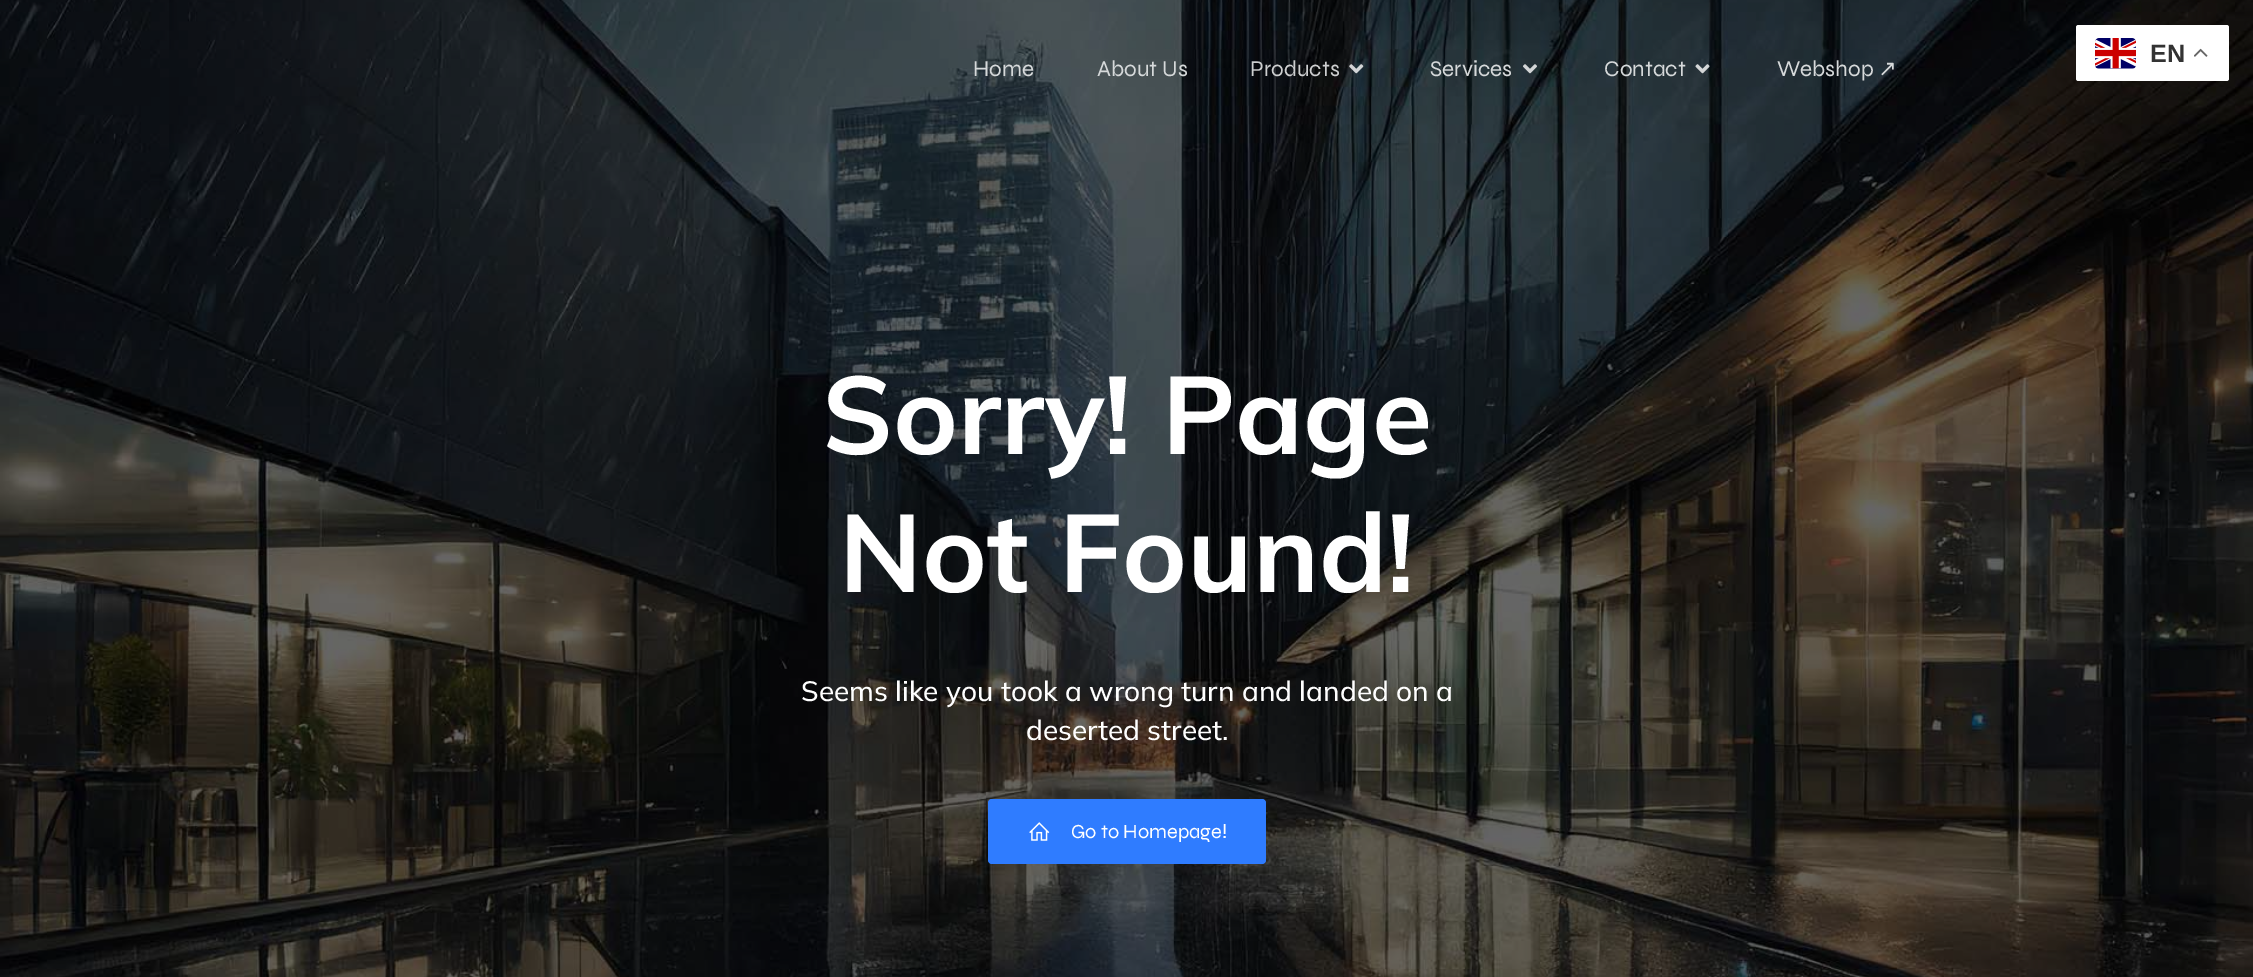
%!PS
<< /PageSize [2253 977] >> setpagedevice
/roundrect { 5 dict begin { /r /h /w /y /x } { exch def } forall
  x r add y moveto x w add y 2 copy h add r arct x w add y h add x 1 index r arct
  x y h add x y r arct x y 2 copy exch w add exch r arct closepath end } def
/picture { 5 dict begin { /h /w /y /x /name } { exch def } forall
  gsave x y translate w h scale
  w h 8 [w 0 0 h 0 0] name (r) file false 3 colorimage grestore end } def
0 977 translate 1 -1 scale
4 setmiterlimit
1 setgray
0 0 2253 977 rectfill
(img6.rgb) 0 0 2253 977 picture
2076 25 153 56 2.5 roundrect fill
(img1.rgb) 2095 38 41 31 picture
/LiberationSans-Bold [25 0 0 -25 0 0] selectfont
0.2 setgray
2150 62 moveto (EN) show
(img2.rgb) 2194 48 14 9 picture
/Syne-Regular [22.5 0 0 -22.5 0 0] selectfont
0.839 0.851 0.855 setrgbcolor
973 76 moveto (Home) show
1097 76 moveto (About Us) show
0.808 0.812 0.816 setrgbcolor
1250 76 moveto (Products) show
(img3.rgb) 1349 64 15 10 picture
0.839 0.851 0.855 setrgbcolor
1430 76 moveto (Services) show
(img4.rgb) 1523 64 14 10 picture
1604 76 moveto (Contact) show
(img5.rgb) 1695 64 15 10 picture
1777 76 moveto (Webshop) show
/DejaVuSans-Regular [22.5 0 0 -22.5 0 0] selectfont
1878 76 moveto (↗) show
/Mulish-Bold [110 0 0 -110 0 0] selectfont
1 setgray
822 454 moveto (Sorry! Page) show
839 592 moveto (Not Found!) show
/Mulish-Medium [28 0 0 -28 0 0] selectfont
801 701 moveto (Seems like you took a wrong turn and landed on a) show
1026 740 moveto (deserted street.) show
0.184 0.486 1 setrgbcolor
988 799 278 65 4 roundrect fill
(img7.rgb) 1029 822 21 19 picture
/Syne-Regular [20 0 0 -20 0 0] selectfont
1 setgray
1071 838 moveto (Go to Homepage!) show
showpage
